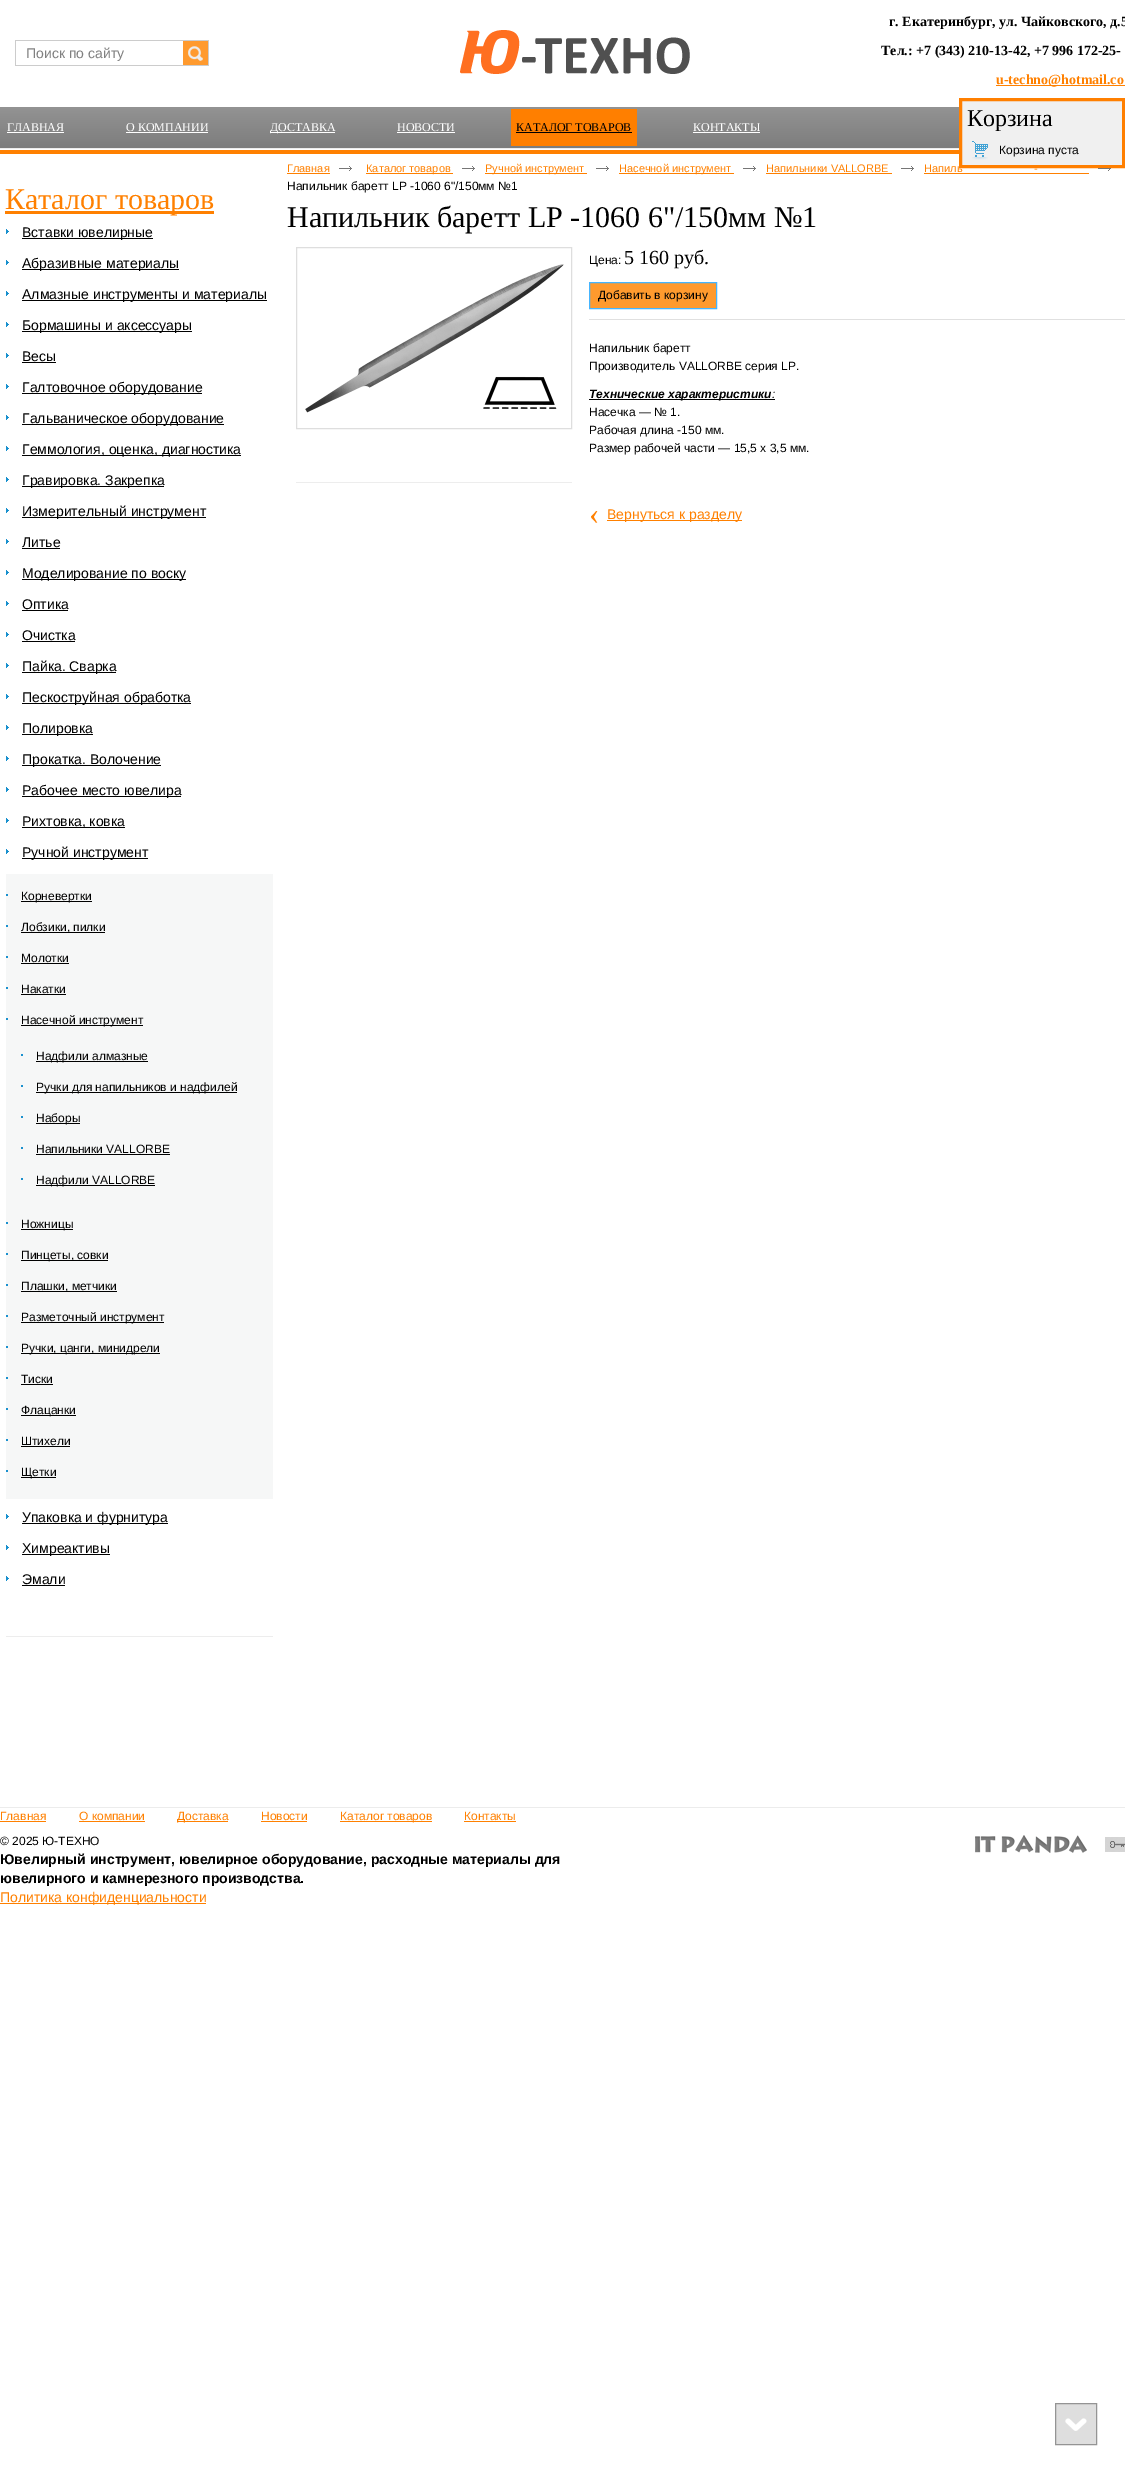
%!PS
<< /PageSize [1125 2473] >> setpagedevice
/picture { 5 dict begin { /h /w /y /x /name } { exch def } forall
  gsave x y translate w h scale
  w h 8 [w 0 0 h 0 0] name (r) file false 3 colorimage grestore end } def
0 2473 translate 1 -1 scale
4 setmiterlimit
1 setgray
0 0 1125 2473 rectfill
0.8 setgray
15 40 168 1 rectfill
15 65 168 1 rectfill
15 40 1 26 rectfill
/LiberationSans-Regular [14 0 0 -14 0 0] selectfont
0.502 setgray
26 58 moveto (Поиск по сайту) show
1 0.604 0.18 setrgbcolor
183 41 25 24 rectfill
(img1.rgb) 188 46 15 15 picture
0.8 setgray
183 40 26 1 rectfill
208 40 1 26 rectfill
183 65 26 1 rectfill
(img2.rgb) 460 30 230 44 picture
/LiberationSerif-Bold [14 0 0 -14 0 0] selectfont
0 setgray
889 26 moveto (г. Екатеринбург, ул. Чайковского, д.5) show
881 55 moveto (Тел.: +7 \(343\) 210-13-42, +7 996 172-25-) show
1 0.502 0 setrgbcolor
996 85 129 1 rectfill
996 84 moveto (u-techno@hotmail.co) show
gsave newpath 0 107 moveto 959 107 lineto 959 148 lineto 0 148 lineto closepath clip newpath
<< /ShadingType 2 /ColorSpace /DeviceRGB /Coords [575 107 575 148] /Extend [true true] /Function << /FunctionType 2 /Domain [0 1] /C0 [0.576 0.576 0.576] /C1 [0.49 0.49 0.49] /N 1 >> >> shfill grestore
0.925 setgray
0 148 959 1 rectfill
/LiberationSerif-Regular [12 0 0 -12 0 0] selectfont
1 setgray
7 131 moveto (ГЛАВНАЯ) show
7 132 57 1 rectfill
126 131 moveto (О КОМПАНИИ) show
126 132 82 1 rectfill
270 132 65 1 rectfill
270 131 moveto (ДОСТАВКА) show
397 131 moveto (НОВОСТИ) show
397 132 58 1 rectfill
1 0.498 0 setrgbcolor
511 109 126 37 rectfill
0 setgray
516 131 moveto (КАТАЛОГ ТОВАРОВ) show
516 132 116 1 rectfill
1 setgray
693 131 moveto (КОНТАКТЫ) show
693 132 67 1 rectfill
1 0.502 0 setrgbcolor
0 150 959 4 rectfill
/LiberationSans-Regular [11 0 0 -11 0 0] selectfont
924 172 moveto (Напиль) show
0.941 setgray
newpath 960.5 99.5 moveto 1123.5 99.5 lineto 1123.5 166.5 lineto 960.5 166.5 lineto closepath gsave fill grestore
1 0.498 0 setrgbcolor
3 setlinewidth
stroke
/LiberationSerif-Regular [24 0 0 -24 0 0] selectfont
0 setgray
967 126 moveto (Корзина) show
(img3.rgb) 972 141 16 19 picture
/LiberationSans-Regular [12 0 0 -12 0 0] selectfont
999 154 moveto (Корзина пуста) show
1 0.502 0 setrgbcolor
5 211 209 3 rectfill
/LiberationSerif-Regular [30 0 0 -30 0 0] selectfont
5 209 moveto (Каталог товаров) show
0.929 setgray
6 1636 267 1 rectfill
(img4.rgb) 6 229 3 5 picture
0 setgray
22 238 131 1 rectfill
/LiberationSans-Regular [14 0 0 -14 0 0] selectfont
22 237 moveto (Вставки ювелирные) show
(img4.rgb) 6 260 3 5 picture
22 269 157 1 rectfill
22 268 moveto (Абразивные материалы) show
(img4.rgb) 6 291 3 5 picture
22 300 245 1 rectfill
22 299 moveto (Алмазные инструменты и материалы) show
(img4.rgb) 6 322 3 5 picture
22 331 170 1 rectfill
22 330 moveto (Бормашины и аксессуары) show
(img4.rgb) 6 353 3 5 picture
22 361 moveto (Весы) show
22 362 34 1 rectfill
(img4.rgb) 6 384 3 5 picture
22 393 180 1 rectfill
22 392 moveto (Галтовочное оборудование) show
(img4.rgb) 6 415 3 5 picture
22 424 202 1 rectfill
22 423 moveto (Гальваническое оборудование) show
(img4.rgb) 6 446 3 5 picture
22 455 219 1 rectfill
22 454 moveto (Геммология, оценка, диагностика) show
(img4.rgb) 6 477 3 5 picture
22 486 142 1 rectfill
22 485 moveto (Гравировка. Закрепка) show
(img4.rgb) 6 508 3 5 picture
22 517 184 1 rectfill
22 516 moveto (Измерительный инструмент) show
(img4.rgb) 6 539 3 5 picture
22 547 moveto (Литье) show
22 548 38 1 rectfill
(img4.rgb) 6 570 3 5 picture
22 579 164 1 rectfill
22 578 moveto (Моделирование по воску) show
(img4.rgb) 6 601 3 5 picture
22 609 moveto (Оптика) show
22 610 46 1 rectfill
(img4.rgb) 6 632 3 5 picture
22 640 moveto (Очистка) show
22 641 53 1 rectfill
(img4.rgb) 6 663 3 5 picture
22 672 94 1 rectfill
22 671 moveto (Пайка. Сварка) show
(img4.rgb) 6 694 3 5 picture
22 703 169 1 rectfill
22 702 moveto (Пескоструйная обработка) show
(img4.rgb) 6 725 3 5 picture
22 734 71 1 rectfill
22 733 moveto (Полировка) show
(img4.rgb) 6 756 3 5 picture
22 765 139 1 rectfill
22 764 moveto (Прокатка. Волочение) show
(img4.rgb) 6 787 3 5 picture
22 796 159 1 rectfill
22 795 moveto (Рабочее место ювелира) show
(img4.rgb) 6 818 3 5 picture
22 827 103 1 rectfill
22 826 moveto (Рихтовка, ковка) show
(img4.rgb) 6 849 3 5 picture
22 858 126 1 rectfill
22 857 moveto (Ручной инструмент) show
0.965 0.969 0.969 setrgbcolor
6 874 267 625 rectfill
0.098 0.565 0.808 setrgbcolor
6 894 2 2 rectfill
0 setgray
21 901 71 1 rectfill
/LiberationSans-Regular [12 0 0 -12 0 0] selectfont
21 900 moveto (Корневертки) show
0.098 0.565 0.808 setrgbcolor
6 925 2 2 rectfill
0 setgray
21 932 84 1 rectfill
21 931 moveto (Лобзики, пилки) show
0.098 0.565 0.808 setrgbcolor
6 956 2 2 rectfill
0 setgray
21 962 moveto (Молотки) show
21 963 48 1 rectfill
0.098 0.565 0.808 setrgbcolor
6 987 2 2 rectfill
0 setgray
21 993 moveto (Накатки) show
21 994 45 1 rectfill
0.098 0.565 0.808 setrgbcolor
6 1018 2 2 rectfill
0 setgray
21 1025 122 1 rectfill
21 1024 moveto (Насечной инструмент) show
0.098 0.565 0.808 setrgbcolor
21 1054 2 2 rectfill
0 setgray
36 1061 112 1 rectfill
36 1060 moveto (Надфили алмазные) show
0.098 0.565 0.808 setrgbcolor
21 1085 2 2 rectfill
0 setgray
36 1092 201 1 rectfill
36 1091 moveto (Ручки для напильников и надфилей) show
0.098 0.565 0.808 setrgbcolor
21 1116 2 2 rectfill
0 setgray
36 1123 44 1 rectfill
36 1122 moveto (Наборы) show
0.098 0.565 0.808 setrgbcolor
21 1147 2 2 rectfill
0 setgray
36 1153 moveto (Напильники VALLORBE) show
36 1154 134 1 rectfill
0.098 0.565 0.808 setrgbcolor
21 1178 2 2 rectfill
0 setgray
36 1185 119 1 rectfill
36 1184 moveto (Надфили VALLORBE) show
0.098 0.565 0.808 setrgbcolor
6 1222 2 2 rectfill
0 setgray
21 1229 52 1 rectfill
21 1228 moveto (Ножницы) show
0.098 0.565 0.808 setrgbcolor
6 1253 2 2 rectfill
0 setgray
21 1260 87 1 rectfill
21 1259 moveto (Пинцеты, совки) show
0.098 0.565 0.808 setrgbcolor
6 1284 2 2 rectfill
0 setgray
21 1291 96 1 rectfill
21 1290 moveto (Плашки, метчики) show
0.098 0.565 0.808 setrgbcolor
6 1315 2 2 rectfill
0 setgray
21 1322 143 1 rectfill
21 1321 moveto (Разметочный инструмент) show
0.098 0.565 0.808 setrgbcolor
6 1346 2 2 rectfill
0 setgray
21 1353 139 1 rectfill
21 1352 moveto (Ручки, цанги, минидрели) show
0.098 0.565 0.808 setrgbcolor
6 1377 2 2 rectfill
0 setgray
21 1383 moveto (Тиски) show
21 1384 32 1 rectfill
0.098 0.565 0.808 setrgbcolor
6 1408 2 2 rectfill
0 setgray
21 1415 55 1 rectfill
21 1414 moveto (Флацанки) show
0.098 0.565 0.808 setrgbcolor
6 1439 2 2 rectfill
0 setgray
21 1445 moveto (Штихели) show
21 1446 49 1 rectfill
0.098 0.565 0.808 setrgbcolor
6 1470 2 2 rectfill
0 setgray
21 1477 35 1 rectfill
21 1476 moveto (Щетки) show
(img4.rgb) 6 1514 3 5 picture
22 1523 146 1 rectfill
/LiberationSans-Regular [14 0 0 -14 0 0] selectfont
22 1522 moveto (Упаковка и фурнитура) show
(img4.rgb) 6 1545 3 5 picture
22 1554 88 1 rectfill
22 1553 moveto (Химреактивы) show
(img4.rgb) 6 1576 3 5 picture
22 1584 moveto (Эмали) show
22 1585 43 1 rectfill
/LiberationSans-Regular [11 0 0 -11 0 0] selectfont
1 0.502 0 setrgbcolor
287 172 moveto (Главная) show
287 173 43 1 rectfill
(img5.rgb) 339 166 13 5 picture
366 173 87 1 rectfill
366 172 moveto (Каталог товаров) show
(img5.rgb) 462 166 13 5 picture
485 173 102 1 rectfill
485 172 moveto (Ручной инструмент) show
(img5.rgb) 596 166 13 5 picture
619 173 115 1 rectfill
619 172 moveto (Насечной инструмент) show
(img5.rgb) 743 166 13 5 picture
766 172 moveto (Напильники VALLORBE) show
766 173 126 1 rectfill
(img5.rgb) 901 166 13 5 picture
1034 172 moveto (-) show
924 173 165 1 rectfill
(img6.rgb) 1098 168 13 3 picture
/LiberationSans-Regular [12 0 0 -12 0 0] selectfont
0 setgray
287 190 moveto (Напильник баретт LP -1060 6"/150мм №1) show
/LiberationSerif-Regular [30 0 0 -30 0 0] selectfont
287 227 moveto (Напильник баретт LP -1060 6"/150мм №1) show
0.871 setgray
1 setlinewidth
296.5 247.5 275 181 rectstroke
(img7.rgb) 305 264 259 149 picture
0.929 setgray
296 482 276 1 rectfill
/LiberationSans-Regular [12 0 0 -12 0 0] selectfont
0 setgray
589 264 moveto (Цена:) show
/LiberationSerif-Regular [20 0 0 -20 0 0] selectfont
624 264 moveto (5 160 руб.) show
1 0.604 0.18 setrgbcolor
newpath 589.5 282.5 moveto 716.5 282.5 lineto 716.5 308.5 lineto 589.5 308.5 lineto closepath gsave fill grestore
0.271 0.71 1 setrgbcolor
stroke
/LiberationSans-Regular [12 0 0 -12 0 0] selectfont
0 setgray
598 299 moveto (Добавить в корзину) show
0.878 setgray
589 319 536 1 rectfill
0 setgray
589 352 moveto (Напильник баретт) show
589 370 moveto (Производитель VALLORBE серия LP.) show
589 399 186 1 rectfill
/LiberationSans-BoldItalic [12 0 0 -12 0 0] selectfont
589 398 moveto (Технические характеристики) show
/LiberationSans-Italic [12 0 0 -12 0 0] selectfont
772 398 moveto (:) show
/LiberationSans-Regular [12 0 0 -12 0 0] selectfont
589 416 moveto (Насечка — № 1.) show
589 434 moveto (Рабочая длина -150 мм.) show
589 452 moveto (Размер рабочей части — 15,5 х 3,5 мм.) show
/LiberationSerif-Regular [31 0 0 -31 0 0] selectfont
1 0.502 0 setrgbcolor
589 524 moveto (‹) show
607 520 135 1 rectfill
/LiberationSans-Regular [14 0 0 -14 0 0] selectfont
607 519 moveto (Вернуться к разделу) show
0.925 setgray
0 1807 1125 1 rectfill
/LiberationSans-Regular [12 0 0 -12 0 0] selectfont
1 0.502 0 setrgbcolor
0 1820 moveto (Главная) show
0 1821 46 1 rectfill
79 1820 moveto (О компании) show
79 1821 66 1 rectfill
177 1821 51 1 rectfill
177 1820 moveto (Доставка) show
261 1820 moveto (Новости) show
261 1821 46 1 rectfill
340 1821 92 1 rectfill
340 1820 moveto (Каталог товаров) show
464 1820 moveto (Контакты) show
464 1821 52 1 rectfill
0 setgray
0 1845 moveto (© 2025 Ю-ТЕХНО) show
/LiberationSans-Bold [14 0 0 -14 0 0] selectfont
0 1864 moveto (Ювелирный инструмент, ювелирное оборудование, расходные материалы для) show
0 1883 moveto (ювелирного и камнерезного производства.) show
1 0.502 0 setrgbcolor
0 1903 206 1 rectfill
/LiberationSans-Regular [14 0 0 -14 0 0] selectfont
0 1902 moveto (Политика конфиденциальности) show
(img8.rgb) 975 1835 112 18 picture
(img9.rgb) 1105 1837 20 15 picture
(img10.rgb) 1056 2404 40 40 picture
0.58 setgray
1055.5 2403.5 41 41 rectstroke
showpage
